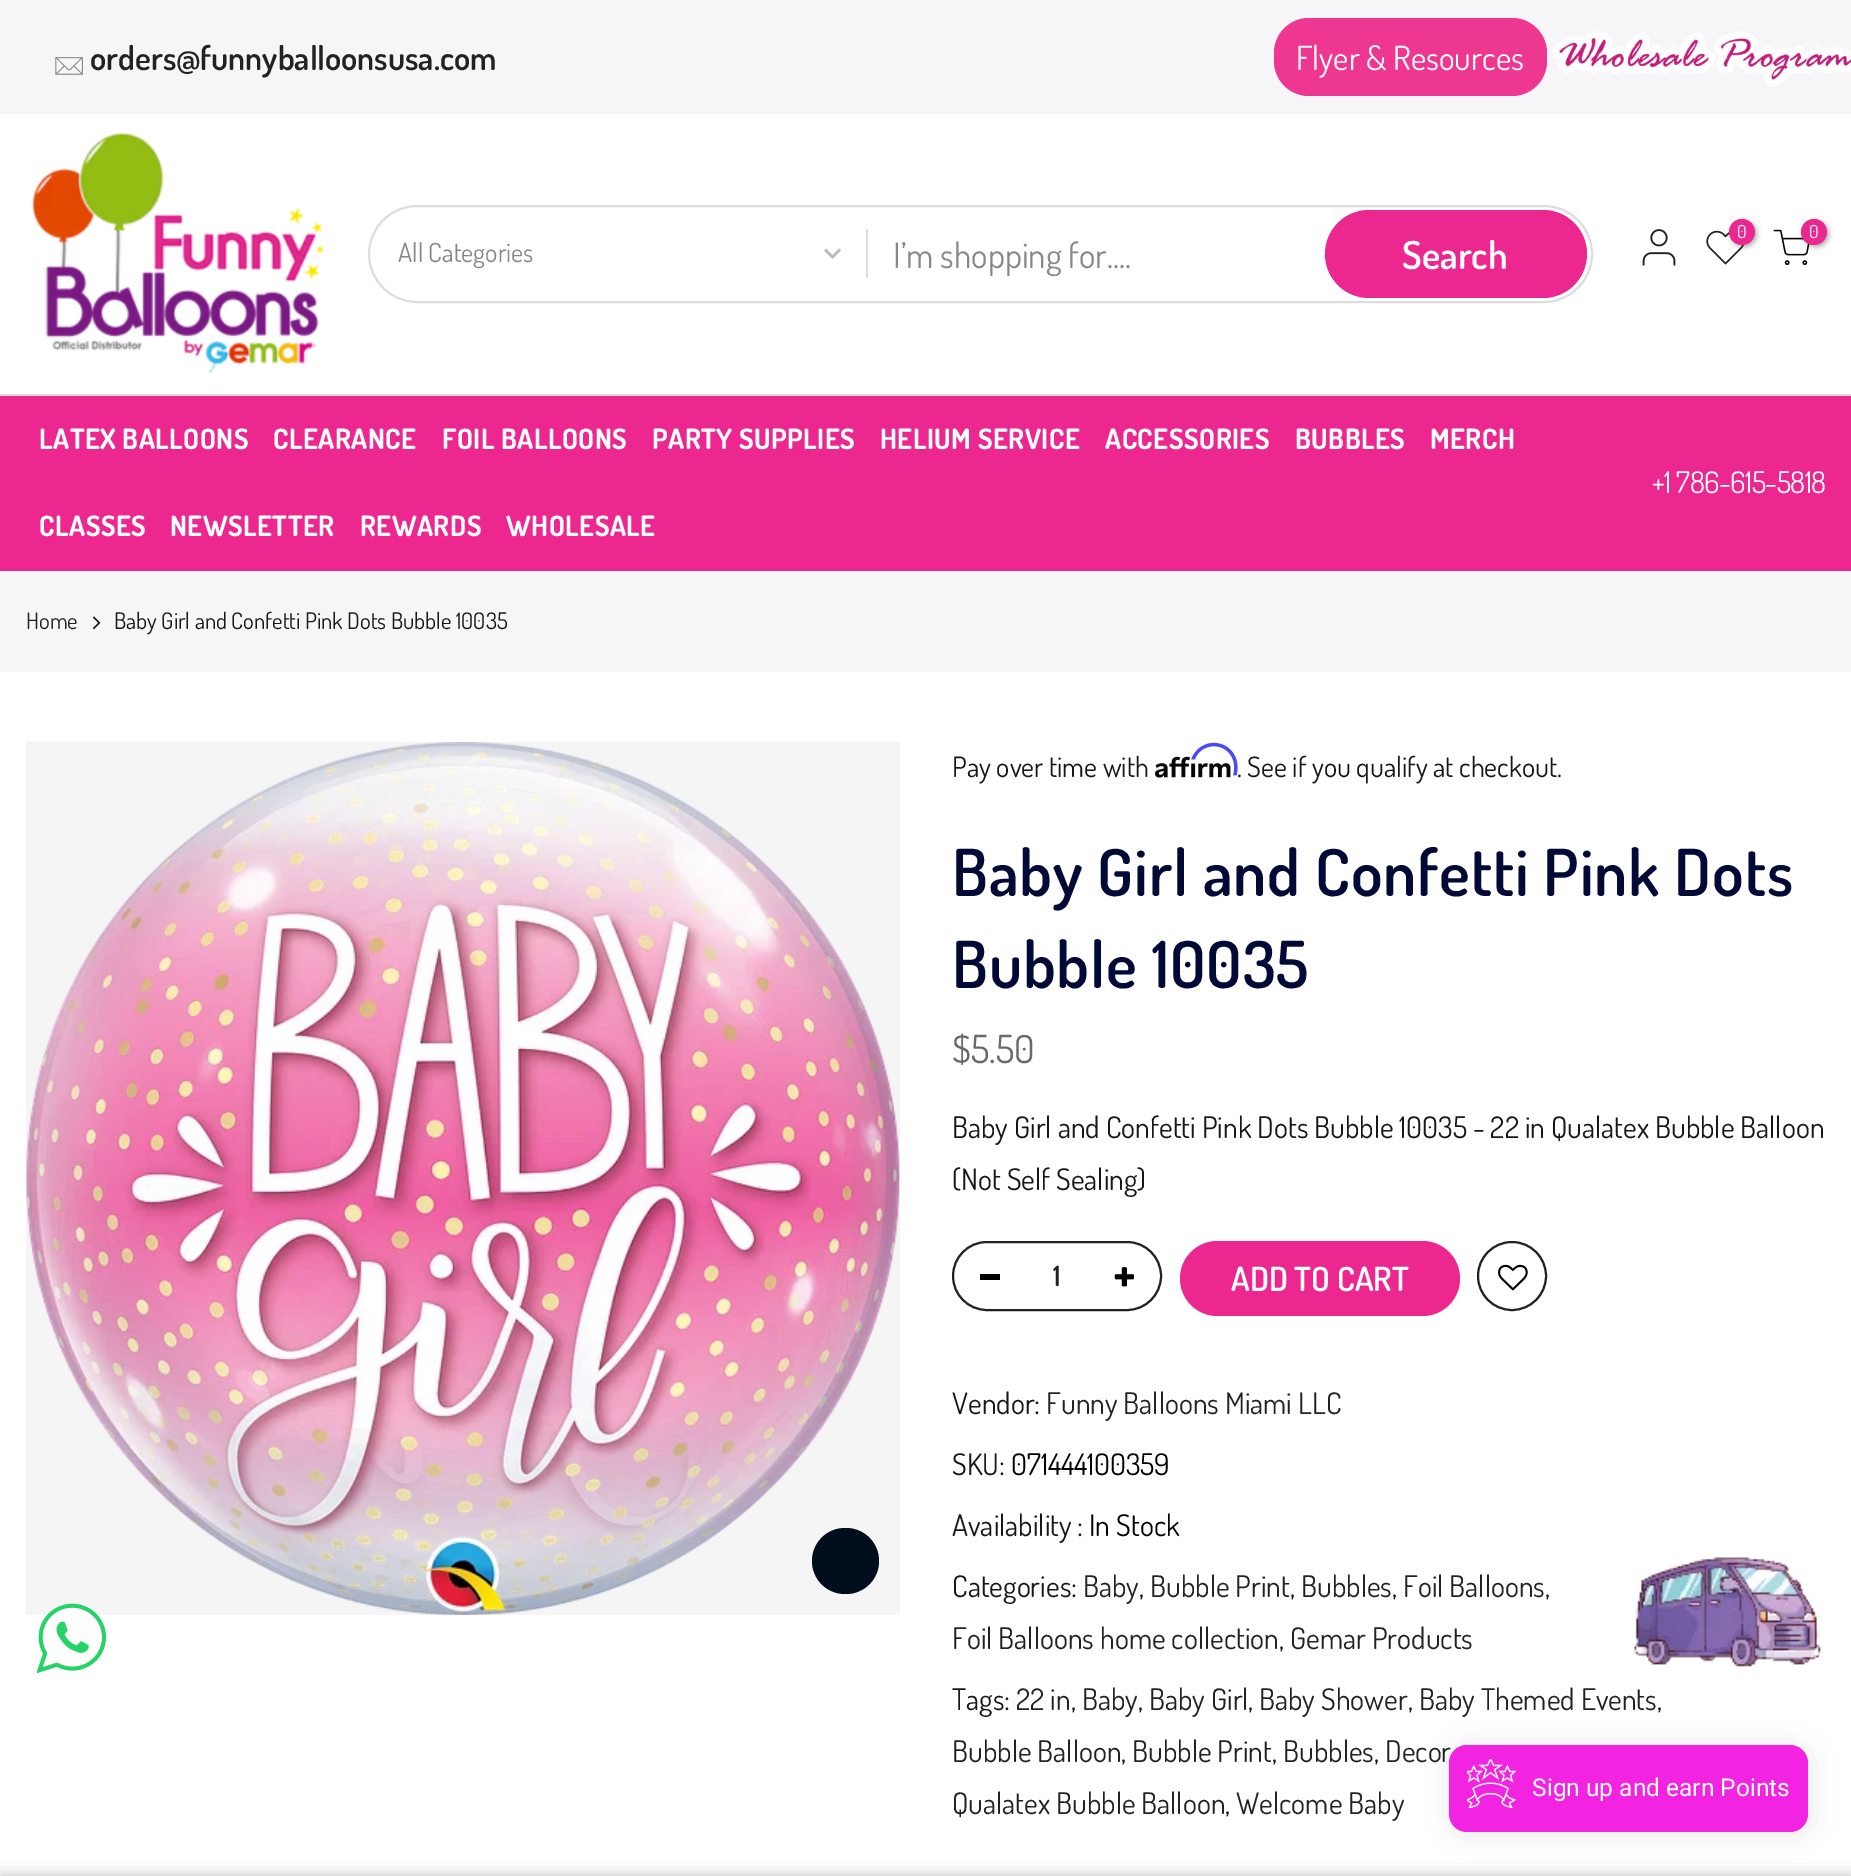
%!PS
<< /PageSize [1851 1876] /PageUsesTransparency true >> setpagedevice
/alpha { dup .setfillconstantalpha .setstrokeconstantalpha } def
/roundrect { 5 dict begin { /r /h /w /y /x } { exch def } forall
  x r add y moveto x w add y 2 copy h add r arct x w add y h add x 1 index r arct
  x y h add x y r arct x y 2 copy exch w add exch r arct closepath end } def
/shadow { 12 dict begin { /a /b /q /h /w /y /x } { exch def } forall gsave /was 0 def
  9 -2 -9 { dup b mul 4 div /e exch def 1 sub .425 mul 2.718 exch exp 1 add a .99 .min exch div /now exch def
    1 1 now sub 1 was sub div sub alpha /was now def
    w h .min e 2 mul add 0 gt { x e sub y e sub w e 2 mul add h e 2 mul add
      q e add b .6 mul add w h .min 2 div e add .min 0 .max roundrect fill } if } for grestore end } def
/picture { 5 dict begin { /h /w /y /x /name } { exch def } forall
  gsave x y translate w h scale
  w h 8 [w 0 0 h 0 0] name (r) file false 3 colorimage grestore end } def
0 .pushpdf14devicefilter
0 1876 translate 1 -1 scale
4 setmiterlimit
1 setgray
0 0 1851 1876 rectfill
0.965 0.965 0.973 setrgbcolor
0 0 1851 114 rectfill
(img1.rgb) 55 57 28 18 picture
/Dosis-SemiBold [33.25 0 0 -33.25 0 0] selectfont
0.133 setgray
90 70 moveto (orders@funnyballoonsusa.com) show
0.929 0.216 0.565 setrgbcolor
1274 18 273 78 35 roundrect fill
/Dosis-Regular [33.25 0 0 -33.25 0 0] selectfont
1 setgray
1296 70 moveto (Flyer & Resources) show
(img2.rgb) 1552 31 299 56 picture
(img3.rgb) 32 132 293 242 picture
(img4.rgb) 1642 229 34 37 picture
(img5.rgb) 1706 230 39 35 picture
0 setgray
1731 221 26 26 13 2.5 0.3 shadow
0.929 0.153 0.565 setrgbcolor
newpath 1742 232 13 0 360 arc closepath fill
/Dosis-Regular [18 0 0 -18 0 0] selectfont
1 setgray
1737 238 moveto (0) show
(img6.rgb) 1773 229 37 36 picture
0 setgray
1803 221 26 26 13 2.5 0.3 shadow
0.929 0.153 0.565 setrgbcolor
newpath 1814 232 13 0 360 arc closepath fill
1 setgray
1809 238 moveto (0) show
0.867 setgray
2 setlinewidth
369 206 1223 96 48 roundrect stroke
0.733 setgray
2.5 setlinewidth
newpath 825 249.5 moveto 832.5 257 lineto 840 249.5 lineto stroke
/Dosis-Regular [26.25 0 0 -26.25 0 0] selectfont
0.529 setgray
398 262 moveto (All Categories) show
0.867 setgray
866 229 2 49 rectfill
/Dosis-Regular [35 0 0 -35 0 0] selectfont
0.529 setgray
893 268 moveto (I’m shopping for....) show
0.929 0.153 0.565 setrgbcolor
1325 210 262 88 44 roundrect fill
/Dosis-SemiBold [38.5 0 0 -38.5 0 0] selectfont
1 setgray
1402 269 moveto (Search) show
0.929 0.153 0.565 setrgbcolor
0 396 1851 175 rectfill
0.867 setgray
0 394 1851 2 rectfill
/Dosis-Bold [28 0 0 -28 0 0] selectfont
1 setgray
39 449 moveto 0.5 0 (LATEX BALLOONS) ashow
273 449 moveto 0.5 0 (CLEARANCE) ashow
442 449 moveto 0.5 0 (FOIL BALLOONS) ashow
652 449 moveto 0.5 0 (PARTY SUPPLIES) ashow
880 449 moveto 0.5 0 (HELIUM SERVICE) ashow
1105 449 moveto 0.5 0 (ACCESSORIES) ashow
1295 449 moveto 0.5 0 (BUBBLES) ashow
1430 449 moveto 0.5 0 (MERCH) ashow
39 536 moveto 0.5 0 (CLASSES) ashow
170 536 moveto 0.5 0 (NEWSLETTER) ashow
360 536 moveto 0.5 0 (REWARDS) ashow
506 536 moveto 0.5 0 (WHOLESALE) ashow
/Dosis-Regular [29.75 0 0 -29.75 0 0] selectfont
1652 493 moveto -0.5 0 (+1 786-615-5818) ashow
0.965 0.965 0.973 setrgbcolor
0 571 1851 101 rectfill
/Dosis-Regular [22.75 0 0 -22.75 0 0] selectfont
0.133 setgray
26 629 moveto (Home) show
(img7.rgb) 93 616 8 14 picture
0.09 setgray
114 629 moveto (Baby Girl and Confetti Pink Dots Bubble 10035) show
0.961 setgray
26 742 874 873 rectfill
(img8.rgb) 26 742 874 874 picture
0 0.051 0.114 setrgbcolor
812 1528 67 66 33 roundrect fill
/Dosis-Regular [28 0 0 -28 0 0] selectfont
0.09 setgray
952 777 moveto (Pay over time with) show
(img10.rgb) 1155 756 76 22 picture
(img9.rgb) 1191 742 47 34 picture
1237 777 moveto (. See if you qualify at checkout.) show
/Dosis-SemiBold [64.75 0 0 -64.75 0 0] selectfont
0.004 0.039 0.216 setrgbcolor
952 896 moveto 0.9 0 (Baby Girl and Confetti Pink Dots) ashow
952 988 moveto 0.9 0 (Bubble 10035) ashow
/Dosis-Regular [38.5 0 0 -38.5 0 0] selectfont
0.412 setgray
952 1063 moveto ($5.50) show
/Dosis-Regular [29.75 0 0 -29.75 0 0] selectfont
0.09 setgray
952 1138 moveto (Baby Girl and Confetti Pink Dots Bubble 10035 - 22 in Qualatex Bubble Balloon) show
952 1190 moveto (\(Not Self Sealing\)) show
0.133 setgray
2 setlinewidth
953 1242 208 68 34 roundrect stroke
/Dosis-SemiBold [28 0 0 -28 0 0] selectfont
1053 1286 moveto (1) show
0 setgray
980 1274 20 6 rectfill
(img11.rgb) 1114 1267 20 20 picture
0.929 0.153 0.565 setrgbcolor
1180 1241 280 75 37.5 roundrect fill
/Dosis-SemiBold [33.25 0 0 -33.25 0 0] selectfont
1 setgray
1231 1291 moveto (ADD TO CART) show
0.133 setgray
newpath 1512 1276 34 0 360 arc closepath stroke
(img12.rgb) 1498 1264 30 27 picture
/Dosis-Regular [29.75 0 0 -29.75 0 0] selectfont
0.09 setgray
952 1414 moveto (Vendor:) show
0.133 setgray
1046 1414 moveto (Funny Balloons Miami LLC) show
0.09 setgray
952 1475 moveto (SKU:) show
0 setgray
1011 1475 moveto (071444100359) show
0.09 setgray
952 1536 moveto (Availability :) show
0 setgray
1089 1536 moveto (In Stock) show
0.09 setgray
952 1597 moveto (Categories:) show
0.133 setgray
1083 1597 moveto (Baby) show
0.09 setgray
1139 1597 moveto (,) show
0.133 setgray
1150 1597 moveto (Bubble Print) show
0.09 setgray
1290 1597 moveto (,) show
0.133 setgray
1301 1597 moveto (Bubbles) show
0.09 setgray
1392 1597 moveto (,) show
0.133 setgray
1403 1597 moveto (Foil Balloons) show
0.09 setgray
1545 1597 moveto (,) show
0.133 setgray
952 1649 moveto (Foil Balloons home collection) show
0.09 setgray
1279 1649 moveto (,) show
0.133 setgray
1290 1649 moveto (Gemar Products) show
0.09 setgray
952 1710 moveto (Tags:) show
0.133 setgray
1016 1710 moveto (22 in) show
0.09 setgray
1071 1710 moveto (,) show
0.133 setgray
1082 1710 moveto (Baby) show
0.09 setgray
1138 1710 moveto (,) show
0.133 setgray
1149 1710 moveto (Baby Girl) show
0.09 setgray
1248 1710 moveto (,) show
0.133 setgray
1259 1710 moveto (Baby Shower) show
0.09 setgray
1408 1710 moveto (,) show
0.133 setgray
1419 1710 moveto (Baby Themed Events) show
0.09 setgray
1657 1710 moveto (,) show
0.133 setgray
952 1762 moveto (Bubble Balloon) show
0.09 setgray
1121 1762 moveto (,) show
0.133 setgray
1132 1762 moveto (Bubble Print) show
0.09 setgray
1272 1762 moveto (,) show
0.133 setgray
1283 1762 moveto (Bubbles) show
0.09 setgray
1374 1762 moveto (,) show
0.133 setgray
1385 1762 moveto (Decor) show
952 1814 moveto (Qualatex Bubble Balloon) show
0.09 setgray
1225 1814 moveto (,) show
0.133 setgray
1236 1814 moveto (Welcome Baby) show
(img13.rgb) 37 1603 70 70 picture
(img14.rgb) 1634 1557 187 110 picture
0 setgray
1451 1747 359 87 18 13 0.1 shadow
0.949 0.141 0.882 setrgbcolor
1449 1745 359 87 18 roundrect fill
(img15.rgb) 1467 1759 50 50 picture
/Roboto-Regular [24.5 0 0 -24.5 0 0] selectfont
1 setgray
1532 1796 moveto (Sign up and earn Points) show
0 setgray
0 1876 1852 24 0 8 0.12 shadow
0 1876 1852 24 0 8 0.14 shadow
.poppdf14devicefilter showpage
